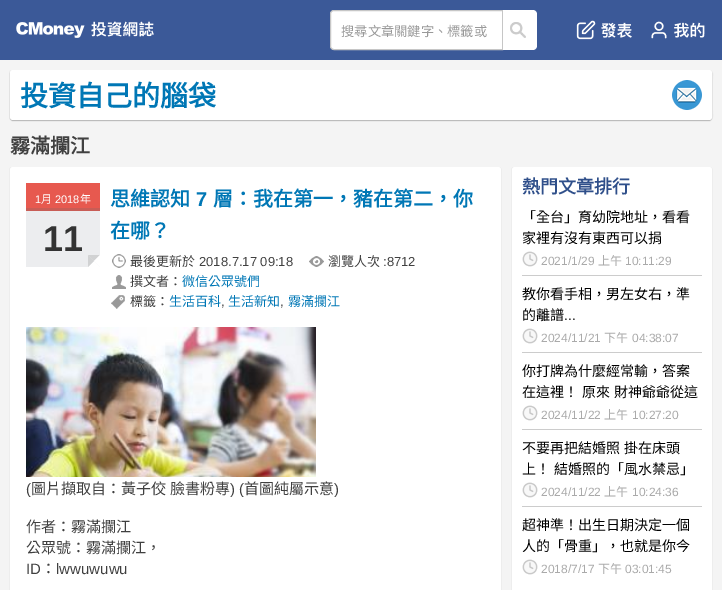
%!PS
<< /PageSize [722 590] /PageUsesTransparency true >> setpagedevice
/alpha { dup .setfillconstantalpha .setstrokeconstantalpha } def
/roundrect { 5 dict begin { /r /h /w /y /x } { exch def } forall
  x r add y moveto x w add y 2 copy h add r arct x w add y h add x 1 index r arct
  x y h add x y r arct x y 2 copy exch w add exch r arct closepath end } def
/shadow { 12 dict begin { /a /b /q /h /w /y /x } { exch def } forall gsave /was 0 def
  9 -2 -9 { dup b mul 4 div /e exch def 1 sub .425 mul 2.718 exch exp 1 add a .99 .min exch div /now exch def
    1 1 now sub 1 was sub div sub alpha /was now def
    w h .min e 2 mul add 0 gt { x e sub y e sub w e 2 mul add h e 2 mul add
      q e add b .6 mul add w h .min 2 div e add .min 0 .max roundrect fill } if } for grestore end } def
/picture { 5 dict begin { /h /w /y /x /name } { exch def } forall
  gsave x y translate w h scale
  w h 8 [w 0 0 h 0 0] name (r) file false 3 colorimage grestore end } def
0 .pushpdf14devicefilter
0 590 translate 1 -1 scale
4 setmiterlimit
0.957 setgray
0 0 722 590 rectfill
0.231 0.349 0.596 setrgbcolor
0 0 722 60 rectfill
(img1.rgb) 16 21 138 17 picture
1 setgray
newpath 334 10.5 moveto 502.5 10.5 lineto 502.5 49.5 lineto 334 49.5 lineto 332 49.5 330.5 48 330.5 46 curveto 330.5 14 lineto 330.5 12 332 10.5 334 10.5 curveto closepath gsave fill grestore
0.776 setgray
stroke
/NotoSansCJKTC-Regular [13.25 0 0 -13.25 0 0] selectfont
0.6 setgray
341 36 moveto (搜尋文章關鍵字、標籤或) show
1 setgray
newpath 503 10 moveto 533 10 lineto 535 10 537 12 537 14 curveto 537 46 lineto 537 48 535 50 533 50 curveto 503 50 lineto closepath fill
(img2.rgb) 510 22 16 16 picture
(img3.rgb) 576 20 56 20 picture
(img4.rgb) 651 21 54 18 picture
0.843 setgray
newpath 10 117 moveto 10 119 11 121 13 121 curveto 709 121 lineto 711 121 712 119 712 117 curveto 712 119 711 120 709 120 curveto 13 120 lineto 11 120 10 119 10 117 curveto closepath fill
0.929 setgray
newpath 709 120 moveto 715 120 713 114 713 110 curveto 713 80 lineto 713 76 715 70 709 70 curveto 711 70 712 71 712 73 curveto 712 117 lineto 712 119 711 120 709 120 curveto closepath fill
0.03 alpha
0 setgray
newpath 12 70 moveto 10 70 9 71 9 73 curveto 9 117 lineto 9 119 10 120 12 120 curveto 13 120 lineto 11 120 10 119 10 117 curveto 10 73 lineto 10 71 11 70 13 70 curveto closepath fill
1 alpha
10 71 702 50 3 0.5 0.15 shadow
1 setgray
10 70 702 50 3 roundrect fill
/NotoSansCJKTC-Bold [28 0 0 -28 0 0] selectfont
0 0.467 0.71 setrgbcolor
20 106 moveto (投資自己的腦袋) show
(img5.rgb) 672 80 30 30 picture
/NotoSansCJKTC-Bold [20 0 0 -20 0 0] selectfont
0.251 setgray
10 153 moveto (霧滿攔江) show
0.929 setgray
newpath 498 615 moveto 500 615 502 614 502 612 curveto 502 169 lineto 500 167 lineto 498 167 lineto 500 167 501 168 501 170 curveto 501 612 lineto 501 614 500 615 498 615 curveto closepath fill
newpath 12 167 moveto 10 167 9 168 9 170 curveto 9 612 lineto 9 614 11 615 13 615 curveto 11 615 10 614 10 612 curveto 10 170 lineto 10 168 11 167 13 167 curveto closepath fill
1 setgray
10 167 491 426 3 roundrect fill
0.906 0.349 0.31 setrgbcolor
26 183 74 25 rectfill
/LiberationSans-Regular [11 0 0 -11 0 0] selectfont
1 setgray
35 203 moveto (1) show
/NotoSansCJKTC-Regular [11 0 0 -11 0 0] selectfont
41 203 moveto (月) show
/LiberationSans-Regular [11 0 0 -11 0 0] selectfont
55 203 moveto (2018) show
/NotoSansCJKTC-Regular [11 0 0 -11 0 0] selectfont
80 203 moveto (年) show
0.925 0.929 0.937 setrgbcolor
26 211 74 56 rectfill
0.784 0.365 0.337 setrgbcolor
26 208 74 3 rectfill
/LiberationSans-Bold [36 0 0 -36 0 0] selectfont
0.2 setgray
43 251 moveto (11) show
0.82 0.824 0.827 setrgbcolor
newpath 88 255 moveto 100 255 lineto 94 261 lineto closepath fill
1 setgray
newpath 100 255 moveto 100 267 lineto 94 261 lineto closepath fill
newpath 100 267 moveto 88 267 lineto 94 261 lineto closepath fill
0.82 0.824 0.827 setrgbcolor
newpath 88 267 moveto 88 255 lineto 94 261 lineto closepath fill
/NotoSansCJKTC-Bold [20 0 0 -20 0 0] selectfont
0 0.467 0.71 setrgbcolor
110 206 moveto (思維認知) show
/LiberationSans-Bold [20 0 0 -20 0 0] selectfont
196 206 moveto (7) show
/NotoSansCJKTC-Bold [20 0 0 -20 0 0] selectfont
213 206 moveto (層：我在第一，豬在第二，你) show
110 238 moveto (在哪？) show
(img6.rgb) 112 254 14 14 picture
/NotoSansCJKTC-Regular [13 0 0 -13 0 0] selectfont
0.251 setgray
130 266 moveto (最後更新於) show
/LiberationSans-Regular [13 0 0 -13 0 0] selectfont
199 266 moveto (2018.7.17 09:18) show
(img7.rgb) 309 256 15 11 picture
/NotoSansCJKTC-Regular [13 0 0 -13 0 0] selectfont
328 266 moveto (瀏覽人次) show
/LiberationSans-Regular [13 0 0 -13 0 0] selectfont
383 266 moveto (:8712) show
(img8.rgb) 112 275 14 14 picture
/NotoSansCJKTC-Regular [13 0 0 -13 0 0] selectfont
130 286 moveto (撰文者：) show
0 0.467 0.71 setrgbcolor
182 286 moveto (微信公眾號們) show
(img9.rgb) 111 295 14 14 picture
0.251 setgray
130 306 moveto (標籤：) show
0 0.467 0.71 setrgbcolor
169 306 moveto (生活百科) show
/LiberationSans-Regular [13 0 0 -13 0 0] selectfont
0.251 setgray
221 306 moveto (,) show
/NotoSansCJKTC-Regular [13 0 0 -13 0 0] selectfont
0 0.467 0.71 setrgbcolor
228 306 moveto (生活新知) show
/LiberationSans-Regular [13 0 0 -13 0 0] selectfont
0.251 setgray
280 306 moveto (,) show
/NotoSansCJKTC-Regular [13 0 0 -13 0 0] selectfont
0 0.467 0.71 setrgbcolor
288 306 moveto (霧滿攔江) show
(img10.rgb) 26 327 290 150 picture
/LiberationSans-Regular [15 0 0 -15 0 0] selectfont
0.251 setgray
26 494 moveto (\() show
/NotoSansCJKTC-Regular [15 0 0 -15 0 0] selectfont
31 494 moveto (圖片擷取自：黃子佼) show
170 494 moveto (臉書粉專) show
/LiberationSans-Regular [15 0 0 -15 0 0] selectfont
230 494 moveto (\) \() show
/NotoSansCJKTC-Regular [15 0 0 -15 0 0] selectfont
244 494 moveto (首圖純屬示意) show
/LiberationSans-Regular [15 0 0 -15 0 0] selectfont
334 494 moveto (\)) show
/NotoSansCJKTC-Regular [15 0 0 -15 0 0] selectfont
26 532 moveto (作者：霧滿攔江) show
26 553 moveto (公眾號：霧滿攔江，) show
/LiberationSans-Regular [15 0 0 -15 0 0] selectfont
26 574 moveto (ID) show
/NotoSansCJKTC-Regular [15 0 0 -15 0 0] selectfont
41 574 moveto (：) show
/LiberationSans-Regular [15 0 0 -15 0 0] selectfont
56 574 moveto (lwwuwuwu) show
0.929 setgray
newpath 709 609 moveto 711 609 lineto 713 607 lineto 713 170 lineto 713 168 711 167 709 167 curveto 711 167 712 168 712 170 curveto 712 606 lineto 712 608 711 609 709 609 curveto closepath fill
newpath 514 167 moveto 512 167 511 168 511 170 curveto 511 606 lineto 511 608 513 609 515 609 curveto 513 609 512 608 512 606 curveto 512 170 lineto 512 168 513 167 515 167 curveto closepath fill
1 setgray
512 167 200 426 3 roundrect fill
/NotoSansCJKTC-Bold [18 0 0 -18 0 0] selectfont
0.184 0.31 0.541 setrgbcolor
522 193 moveto (熱門文章排行) show
/NotoSansCJKTC-Regular [14 0 0 -14 0 0] selectfont
0 setgray
522 222 moveto (「全台」育幼院地址，看看) show
522 243 moveto (家裡有沒有東西可以捐) show
(img11.rgb) 522 251 16 16 picture
/LiberationSans-Regular [12 0 0 -12 0 0] selectfont
0.667 setgray
541 265 moveto (2021/1/29) show
/NotoSansCJKTC-Regular [12 0 0 -12 0 0] selectfont
598 265 moveto (上午) show
/LiberationSans-Regular [12 0 0 -12 0 0] selectfont
625 265 moveto (10:11:29) show
0.8 setgray
522 275 180 1 rectfill
/NotoSansCJKTC-Regular [14 0 0 -14 0 0] selectfont
0 setgray
522 299 moveto (教你看手相，男左女右，準) show
522 320 moveto (的離譜) show
/LiberationSans-Regular [14 0 0 -14 0 0] selectfont
564 320 moveto (...) show
(img11.rgb) 522 328 16 16 picture
/LiberationSans-Regular [12 0 0 -12 0 0] selectfont
0.667 setgray
541 342 moveto (2024/11/21) show
/NotoSansCJKTC-Regular [12 0 0 -12 0 0] selectfont
604 342 moveto (下午) show
/LiberationSans-Regular [12 0 0 -12 0 0] selectfont
632 342 moveto (04:38:07) show
0.8 setgray
522 352 180 1 rectfill
/NotoSansCJKTC-Regular [14 0 0 -14 0 0] selectfont
0 setgray
522 376 moveto (你打牌為什麼經常輸，答案) show
522 397 moveto 1 0 32 (在這裡！ 原來 財神爺爺從這) widthshow
(img11.rgb) 522 405 16 16 picture
/LiberationSans-Regular [12 0 0 -12 0 0] selectfont
0.667 setgray
541 419 moveto (2024/11/22) show
/NotoSansCJKTC-Regular [12 0 0 -12 0 0] selectfont
604 419 moveto (上午) show
/LiberationSans-Regular [12 0 0 -12 0 0] selectfont
632 419 moveto (10:27:20) show
0.8 setgray
522 429 180 1 rectfill
/NotoSansCJKTC-Regular [14 0 0 -14 0 0] selectfont
0 setgray
522 453 moveto 1 0 32 (不要再把結婚照 掛在床頭) widthshow
522 474 moveto 1 0 32 (上！ 結婚照的「風水禁忌」) widthshow
(img11.rgb) 522 482 16 16 picture
/LiberationSans-Regular [12 0 0 -12 0 0] selectfont
0.667 setgray
541 496 moveto (2024/11/22) show
/NotoSansCJKTC-Regular [12 0 0 -12 0 0] selectfont
604 496 moveto (上午) show
/LiberationSans-Regular [12 0 0 -12 0 0] selectfont
632 496 moveto (10:24:36) show
0.8 setgray
522 506 180 1 rectfill
/NotoSansCJKTC-Regular [14 0 0 -14 0 0] selectfont
0 setgray
522 530 moveto (超神準！出生日期決定一個) show
522 551 moveto (人的「骨重」，也就是你今) show
(img11.rgb) 522 559 16 16 picture
/LiberationSans-Regular [12 0 0 -12 0 0] selectfont
0.667 setgray
541 573 moveto (2018/7/17) show
/NotoSansCJKTC-Regular [12 0 0 -12 0 0] selectfont
598 573 moveto (下午) show
/LiberationSans-Regular [12 0 0 -12 0 0] selectfont
625 573 moveto (03:01:45) show
.poppdf14devicefilter showpage
